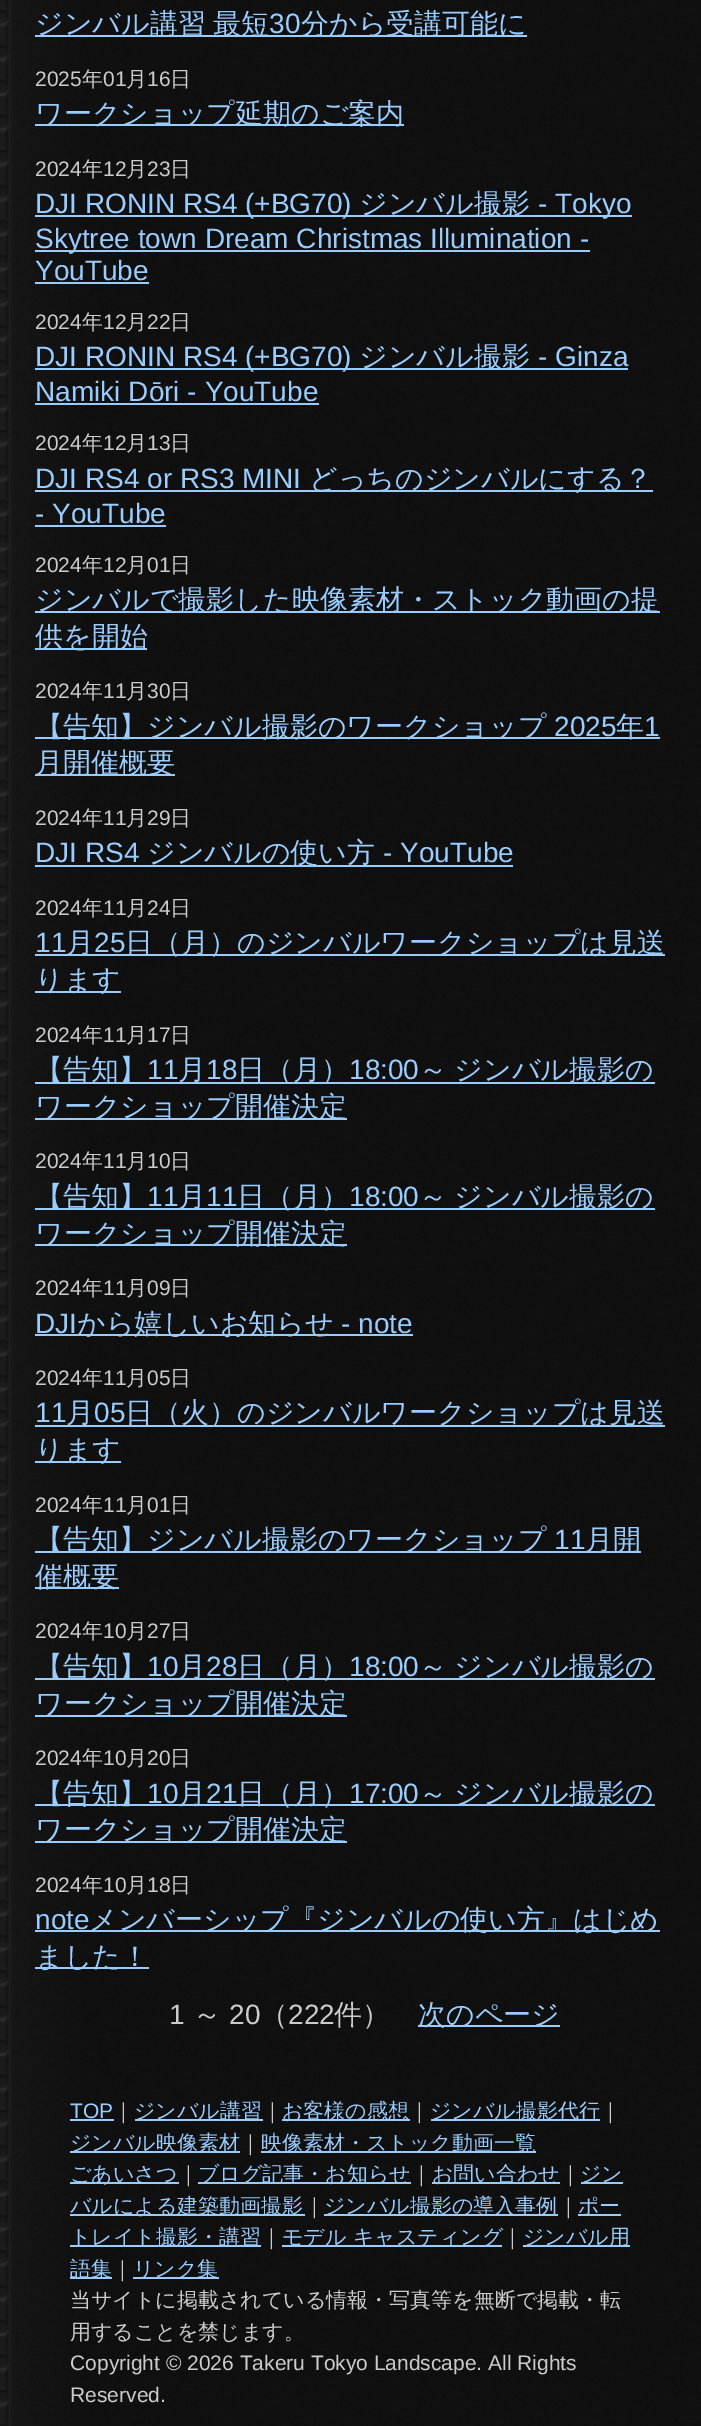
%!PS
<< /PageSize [701 2426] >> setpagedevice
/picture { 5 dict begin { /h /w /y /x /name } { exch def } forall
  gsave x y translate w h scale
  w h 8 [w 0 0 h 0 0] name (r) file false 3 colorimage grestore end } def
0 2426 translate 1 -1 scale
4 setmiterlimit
1 setgray
0 0 701 2426 rectfill
(img1.rgb) 0 0 10 2426 picture
(img2.rgb) 5 0 696 2426 picture
0.6 0.8 1 setrgbcolor
35 35 492 2 rectfill
/WenQuanYiZenHei-Medium [28 0 0 -28 0 0] selectfont
35 33 moveto -1 0 32 (ジンバル講習 最短) widthshow
/LiberationSans-Regular [28 0 0 -28 0 0] selectfont
269 33 moveto (30) show
/WenQuanYiZenHei-Medium [28 0 0 -28 0 0] selectfont
301 33 moveto (分から受講可能に) show
/LiberationSans-Regular [21 0 0 -21 0 0] selectfont
0.8 setgray
35 86 moveto (2025) show
/WenQuanYiZenHei-Medium [21 0 0 -21 0 0] selectfont
82 86 moveto (年) show
/LiberationSans-Regular [21 0 0 -21 0 0] selectfont
103 86 moveto (01) show
/WenQuanYiZenHei-Medium [21 0 0 -21 0 0] selectfont
126 86 moveto (月) show
/LiberationSans-Regular [21 0 0 -21 0 0] selectfont
147 86 moveto (16) show
/WenQuanYiZenHei-Medium [21 0 0 -21 0 0] selectfont
170 86 moveto (日) show
0.6 0.8 1 setrgbcolor
35 124 369 2 rectfill
/WenQuanYiZenHei-Medium [28 0 0 -28 0 0] selectfont
35 123 moveto (ワークショップ延期のご案内) show
/LiberationSans-Regular [21 0 0 -21 0 0] selectfont
0.8 setgray
35 176 moveto (2024) show
/WenQuanYiZenHei-Medium [21 0 0 -21 0 0] selectfont
82 176 moveto (年) show
/LiberationSans-Regular [21 0 0 -21 0 0] selectfont
103 176 moveto (12) show
/WenQuanYiZenHei-Medium [21 0 0 -21 0 0] selectfont
126 176 moveto (月) show
/LiberationSans-Regular [21 0 0 -21 0 0] selectfont
147 176 moveto (23) show
/WenQuanYiZenHei-Medium [21 0 0 -21 0 0] selectfont
170 176 moveto (日) show
0.6 0.8 1 setrgbcolor
35 215 597 2 rectfill
/LiberationSans-Regular [28 0 0 -28 0 0] selectfont
35 213 moveto (DJI RONIN RS4 \(+BG70\)) show
/WenQuanYiZenHei-Medium [28 0 0 -28 0 0] selectfont
359 213 moveto (ジンバル撮影) show
/LiberationSans-Regular [28 0 0 -28 0 0] selectfont
538 213 moveto (- Tokyo) show
35 250 555 2 rectfill
35 248 moveto (Skytree town Dream Christmas Illumination -) show
35 280 moveto (YouTube) show
35 282 114 2 rectfill
/LiberationSans-Regular [21 0 0 -21 0 0] selectfont
0.8 setgray
35 329 moveto (2024) show
/WenQuanYiZenHei-Medium [21 0 0 -21 0 0] selectfont
82 329 moveto (年) show
/LiberationSans-Regular [21 0 0 -21 0 0] selectfont
103 329 moveto (12) show
/WenQuanYiZenHei-Medium [21 0 0 -21 0 0] selectfont
126 329 moveto (月) show
/LiberationSans-Regular [21 0 0 -21 0 0] selectfont
147 329 moveto (22) show
/WenQuanYiZenHei-Medium [21 0 0 -21 0 0] selectfont
170 329 moveto (日) show
0.6 0.8 1 setrgbcolor
35 368 593 2 rectfill
/LiberationSans-Regular [28 0 0 -28 0 0] selectfont
35 366 moveto (DJI RONIN RS4 \(+BG70\)) show
/WenQuanYiZenHei-Medium [28 0 0 -28 0 0] selectfont
359 366 moveto (ジンバル撮影) show
/LiberationSans-Regular [28 0 0 -28 0 0] selectfont
538 366 moveto (- Ginza) show
35 401 moveto (Namiki Dōri - YouTube) show
35 403 284 2 rectfill
/LiberationSans-Regular [21 0 0 -21 0 0] selectfont
0.8 setgray
35 450 moveto (2024) show
/WenQuanYiZenHei-Medium [21 0 0 -21 0 0] selectfont
82 450 moveto (年) show
/LiberationSans-Regular [21 0 0 -21 0 0] selectfont
103 450 moveto (12) show
/WenQuanYiZenHei-Medium [21 0 0 -21 0 0] selectfont
126 450 moveto (月) show
/LiberationSans-Regular [21 0 0 -21 0 0] selectfont
147 450 moveto (13) show
/WenQuanYiZenHei-Medium [21 0 0 -21 0 0] selectfont
170 450 moveto (日) show
/LiberationSans-Regular [28 0 0 -28 0 0] selectfont
0.6 0.8 1 setrgbcolor
35 488 moveto (DJI RS4 or RS3 MINI) show
35 490 618 2 rectfill
/WenQuanYiZenHei-Medium [28 0 0 -28 0 0] selectfont
309 488 moveto (どっちのジンバルにする？) show
/LiberationSans-Regular [28 0 0 -28 0 0] selectfont
35 523 moveto (- YouTube) show
35 525 131 2 rectfill
/LiberationSans-Regular [21 0 0 -21 0 0] selectfont
0.8 setgray
35 572 moveto (2024) show
/WenQuanYiZenHei-Medium [21 0 0 -21 0 0] selectfont
82 572 moveto (年) show
/LiberationSans-Regular [21 0 0 -21 0 0] selectfont
103 572 moveto (12) show
/WenQuanYiZenHei-Medium [21 0 0 -21 0 0] selectfont
126 572 moveto (月) show
/LiberationSans-Regular [21 0 0 -21 0 0] selectfont
147 572 moveto (01) show
/WenQuanYiZenHei-Medium [21 0 0 -21 0 0] selectfont
170 572 moveto (日) show
0.6 0.8 1 setrgbcolor
35 611 625 2 rectfill
/WenQuanYiZenHei-Medium [28 0 0 -28 0 0] selectfont
35 609 moveto (ジンバルで撮影した映像素材・ストック動画の提) show
35 648 112 2 rectfill
35 646 moveto (供を開始) show
/LiberationSans-Regular [21 0 0 -21 0 0] selectfont
0.8 setgray
35 698 moveto (2024) show
/WenQuanYiZenHei-Medium [21 0 0 -21 0 0] selectfont
82 698 moveto (年) show
/LiberationSans-Regular [21 0 0 -21 0 0] selectfont
103 698 moveto (11) show
/WenQuanYiZenHei-Medium [21 0 0 -21 0 0] selectfont
126 698 moveto (月) show
/LiberationSans-Regular [21 0 0 -21 0 0] selectfont
147 698 moveto (30) show
/WenQuanYiZenHei-Medium [21 0 0 -21 0 0] selectfont
170 698 moveto (日) show
0.6 0.8 1 setrgbcolor
35 737 625 2 rectfill
/WenQuanYiZenHei-Medium [28 0 0 -28 0 0] selectfont
35 736 moveto (【告知】ジンバル撮影のワークショップ) show
/LiberationSans-Regular [28 0 0 -28 0 0] selectfont
554 736 moveto (2025) show
/WenQuanYiZenHei-Medium [28 0 0 -28 0 0] selectfont
616 736 moveto (年) show
/LiberationSans-Regular [28 0 0 -28 0 0] selectfont
644 736 moveto (1) show
35 774 140 2 rectfill
/WenQuanYiZenHei-Medium [28 0 0 -28 0 0] selectfont
35 772 moveto (月開催概要) show
/LiberationSans-Regular [21 0 0 -21 0 0] selectfont
0.8 setgray
35 825 moveto (2024) show
/WenQuanYiZenHei-Medium [21 0 0 -21 0 0] selectfont
82 825 moveto (年) show
/LiberationSans-Regular [21 0 0 -21 0 0] selectfont
103 825 moveto (11) show
/WenQuanYiZenHei-Medium [21 0 0 -21 0 0] selectfont
126 825 moveto (月) show
/LiberationSans-Regular [21 0 0 -21 0 0] selectfont
147 825 moveto (29) show
/WenQuanYiZenHei-Medium [21 0 0 -21 0 0] selectfont
170 825 moveto (日) show
/LiberationSans-Regular [28 0 0 -28 0 0] selectfont
0.6 0.8 1 setrgbcolor
35 862 moveto (DJI RS4) show
35 865 478 2 rectfill
/WenQuanYiZenHei-Medium [28 0 0 -28 0 0] selectfont
147 862 moveto (ジンバルの使い方) show
/LiberationSans-Regular [28 0 0 -28 0 0] selectfont
383 862 moveto (- YouTube) show
/LiberationSans-Regular [21 0 0 -21 0 0] selectfont
0.8 setgray
35 915 moveto (2024) show
/WenQuanYiZenHei-Medium [21 0 0 -21 0 0] selectfont
82 915 moveto (年) show
/LiberationSans-Regular [21 0 0 -21 0 0] selectfont
103 915 moveto (11) show
/WenQuanYiZenHei-Medium [21 0 0 -21 0 0] selectfont
126 915 moveto (月) show
/LiberationSans-Regular [21 0 0 -21 0 0] selectfont
147 915 moveto (24) show
/WenQuanYiZenHei-Medium [21 0 0 -21 0 0] selectfont
170 915 moveto (日) show
/LiberationSans-Regular [28 0 0 -28 0 0] selectfont
0.6 0.8 1 setrgbcolor
35 952 moveto (11) show
35 954 630 2 rectfill
/WenQuanYiZenHei-Medium [28 0 0 -28 0 0] selectfont
66 952 moveto (月) show
/LiberationSans-Regular [28 0 0 -28 0 0] selectfont
94 952 moveto (25) show
/WenQuanYiZenHei-Medium [28 0 0 -28 0 0] selectfont
125 952 moveto (日（月）のジンバルワークショップは見送) show
35 991 86 2 rectfill
35 989 moveto (ります) show
/LiberationSans-Regular [21 0 0 -21 0 0] selectfont
0.8 setgray
35 1042 moveto (2024) show
/WenQuanYiZenHei-Medium [21 0 0 -21 0 0] selectfont
82 1042 moveto (年) show
/LiberationSans-Regular [21 0 0 -21 0 0] selectfont
103 1042 moveto (11) show
/WenQuanYiZenHei-Medium [21 0 0 -21 0 0] selectfont
126 1042 moveto (月) show
/LiberationSans-Regular [21 0 0 -21 0 0] selectfont
147 1042 moveto (17) show
/WenQuanYiZenHei-Medium [21 0 0 -21 0 0] selectfont
170 1042 moveto (日) show
0.6 0.8 1 setrgbcolor
35 1082 620 2 rectfill
/WenQuanYiZenHei-Medium [28 0 0 -28 0 0] selectfont
35 1079 moveto (【告知】) show
/LiberationSans-Regular [28 0 0 -28 0 0] selectfont
147 1079 moveto (11) show
/WenQuanYiZenHei-Medium [28 0 0 -28 0 0] selectfont
178 1079 moveto (月) show
/LiberationSans-Regular [28 0 0 -28 0 0] selectfont
206 1079 moveto (18) show
/WenQuanYiZenHei-Medium [28 0 0 -28 0 0] selectfont
237 1079 moveto (日（月）) show
/LiberationSans-Regular [28 0 0 -28 0 0] selectfont
349 1079 moveto (18:00) show
/WenQuanYiZenHei-Medium [28 0 0 -28 0 0] selectfont
419 1079 moveto -1 0 32 (～ ジンバル撮影の) widthshow
35 1118 312 2 rectfill
35 1116 moveto (ワークショップ開催決定) show
/LiberationSans-Regular [21 0 0 -21 0 0] selectfont
0.8 setgray
35 1168 moveto (2024) show
/WenQuanYiZenHei-Medium [21 0 0 -21 0 0] selectfont
82 1168 moveto (年) show
/LiberationSans-Regular [21 0 0 -21 0 0] selectfont
103 1168 moveto (11) show
/WenQuanYiZenHei-Medium [21 0 0 -21 0 0] selectfont
126 1168 moveto (月) show
/LiberationSans-Regular [21 0 0 -21 0 0] selectfont
147 1168 moveto (10) show
/WenQuanYiZenHei-Medium [21 0 0 -21 0 0] selectfont
170 1168 moveto (日) show
0.6 0.8 1 setrgbcolor
35 1208 620 2 rectfill
/WenQuanYiZenHei-Medium [28 0 0 -28 0 0] selectfont
35 1206 moveto (【告知】) show
/LiberationSans-Regular [28 0 0 -28 0 0] selectfont
147 1206 moveto (11) show
/WenQuanYiZenHei-Medium [28 0 0 -28 0 0] selectfont
178 1206 moveto (月) show
/LiberationSans-Regular [28 0 0 -28 0 0] selectfont
206 1206 moveto (11) show
/WenQuanYiZenHei-Medium [28 0 0 -28 0 0] selectfont
237 1206 moveto (日（月）) show
/LiberationSans-Regular [28 0 0 -28 0 0] selectfont
349 1206 moveto (18:00) show
/WenQuanYiZenHei-Medium [28 0 0 -28 0 0] selectfont
419 1206 moveto -1 0 32 (～ ジンバル撮影の) widthshow
35 1244 312 2 rectfill
35 1243 moveto (ワークショップ開催決定) show
/LiberationSans-Regular [21 0 0 -21 0 0] selectfont
0.8 setgray
35 1295 moveto (2024) show
/WenQuanYiZenHei-Medium [21 0 0 -21 0 0] selectfont
82 1295 moveto (年) show
/LiberationSans-Regular [21 0 0 -21 0 0] selectfont
103 1295 moveto (11) show
/WenQuanYiZenHei-Medium [21 0 0 -21 0 0] selectfont
126 1295 moveto (月) show
/LiberationSans-Regular [21 0 0 -21 0 0] selectfont
147 1295 moveto (09) show
/WenQuanYiZenHei-Medium [21 0 0 -21 0 0] selectfont
170 1295 moveto (日) show
/LiberationSans-Regular [28 0 0 -28 0 0] selectfont
0.6 0.8 1 setrgbcolor
35 1333 moveto (DJI) show
35 1334 378 2 rectfill
/WenQuanYiZenHei-Medium [28 0 0 -28 0 0] selectfont
77 1333 moveto (から嬉しいお知らせ) show
/LiberationSans-Regular [28 0 0 -28 0 0] selectfont
341 1333 moveto (- note) show
/LiberationSans-Regular [21 0 0 -21 0 0] selectfont
0.8 setgray
35 1385 moveto (2024) show
/WenQuanYiZenHei-Medium [21 0 0 -21 0 0] selectfont
82 1385 moveto (年) show
/LiberationSans-Regular [21 0 0 -21 0 0] selectfont
103 1385 moveto (11) show
/WenQuanYiZenHei-Medium [21 0 0 -21 0 0] selectfont
126 1385 moveto (月) show
/LiberationSans-Regular [21 0 0 -21 0 0] selectfont
147 1385 moveto (05) show
/WenQuanYiZenHei-Medium [21 0 0 -21 0 0] selectfont
170 1385 moveto (日) show
/LiberationSans-Regular [28 0 0 -28 0 0] selectfont
0.6 0.8 1 setrgbcolor
35 1422 moveto (11) show
35 1425 630 2 rectfill
/WenQuanYiZenHei-Medium [28 0 0 -28 0 0] selectfont
66 1422 moveto (月) show
/LiberationSans-Regular [28 0 0 -28 0 0] selectfont
94 1422 moveto (05) show
/WenQuanYiZenHei-Medium [28 0 0 -28 0 0] selectfont
125 1422 moveto (日（火）のジンバルワークショップは見送) show
35 1461 86 2 rectfill
35 1459 moveto (ります) show
/LiberationSans-Regular [21 0 0 -21 0 0] selectfont
0.8 setgray
35 1512 moveto (2024) show
/WenQuanYiZenHei-Medium [21 0 0 -21 0 0] selectfont
82 1512 moveto (年) show
/LiberationSans-Regular [21 0 0 -21 0 0] selectfont
103 1512 moveto (11) show
/WenQuanYiZenHei-Medium [21 0 0 -21 0 0] selectfont
126 1512 moveto (月) show
/LiberationSans-Regular [21 0 0 -21 0 0] selectfont
147 1512 moveto (01) show
/WenQuanYiZenHei-Medium [21 0 0 -21 0 0] selectfont
170 1512 moveto (日) show
0.6 0.8 1 setrgbcolor
35 1551 606 2 rectfill
/WenQuanYiZenHei-Medium [28 0 0 -28 0 0] selectfont
35 1549 moveto (【告知】ジンバル撮影のワークショップ) show
/LiberationSans-Regular [28 0 0 -28 0 0] selectfont
554 1549 moveto (11) show
/WenQuanYiZenHei-Medium [28 0 0 -28 0 0] selectfont
585 1549 moveto (月開) show
35 1587 84 2 rectfill
35 1586 moveto (催概要) show
/LiberationSans-Regular [21 0 0 -21 0 0] selectfont
0.8 setgray
35 1638 moveto (2024) show
/WenQuanYiZenHei-Medium [21 0 0 -21 0 0] selectfont
82 1638 moveto (年) show
/LiberationSans-Regular [21 0 0 -21 0 0] selectfont
103 1638 moveto (10) show
/WenQuanYiZenHei-Medium [21 0 0 -21 0 0] selectfont
126 1638 moveto (月) show
/LiberationSans-Regular [21 0 0 -21 0 0] selectfont
147 1638 moveto (27) show
/WenQuanYiZenHei-Medium [21 0 0 -21 0 0] selectfont
170 1638 moveto (日) show
0.6 0.8 1 setrgbcolor
35 1678 620 2 rectfill
/WenQuanYiZenHei-Medium [28 0 0 -28 0 0] selectfont
35 1676 moveto (【告知】) show
/LiberationSans-Regular [28 0 0 -28 0 0] selectfont
147 1676 moveto (10) show
/WenQuanYiZenHei-Medium [28 0 0 -28 0 0] selectfont
178 1676 moveto (月) show
/LiberationSans-Regular [28 0 0 -28 0 0] selectfont
206 1676 moveto (28) show
/WenQuanYiZenHei-Medium [28 0 0 -28 0 0] selectfont
237 1676 moveto (日（月）) show
/LiberationSans-Regular [28 0 0 -28 0 0] selectfont
349 1676 moveto (18:00) show
/WenQuanYiZenHei-Medium [28 0 0 -28 0 0] selectfont
419 1676 moveto -1 0 32 (～ ジンバル撮影の) widthshow
35 1715 312 2 rectfill
35 1713 moveto (ワークショップ開催決定) show
/LiberationSans-Regular [21 0 0 -21 0 0] selectfont
0.8 setgray
35 1765 moveto (2024) show
/WenQuanYiZenHei-Medium [21 0 0 -21 0 0] selectfont
82 1765 moveto (年) show
/LiberationSans-Regular [21 0 0 -21 0 0] selectfont
103 1765 moveto (10) show
/WenQuanYiZenHei-Medium [21 0 0 -21 0 0] selectfont
126 1765 moveto (月) show
/LiberationSans-Regular [21 0 0 -21 0 0] selectfont
147 1765 moveto (20) show
/WenQuanYiZenHei-Medium [21 0 0 -21 0 0] selectfont
170 1765 moveto (日) show
0.6 0.8 1 setrgbcolor
35 1804 620 2 rectfill
/WenQuanYiZenHei-Medium [28 0 0 -28 0 0] selectfont
35 1803 moveto (【告知】) show
/LiberationSans-Regular [28 0 0 -28 0 0] selectfont
147 1803 moveto (10) show
/WenQuanYiZenHei-Medium [28 0 0 -28 0 0] selectfont
178 1803 moveto (月) show
/LiberationSans-Regular [28 0 0 -28 0 0] selectfont
206 1803 moveto (21) show
/WenQuanYiZenHei-Medium [28 0 0 -28 0 0] selectfont
237 1803 moveto (日（月）) show
/LiberationSans-Regular [28 0 0 -28 0 0] selectfont
349 1803 moveto (17:00) show
/WenQuanYiZenHei-Medium [28 0 0 -28 0 0] selectfont
419 1803 moveto -1 0 32 (～ ジンバル撮影の) widthshow
35 1841 312 2 rectfill
35 1839 moveto (ワークショップ開催決定) show
/LiberationSans-Regular [21 0 0 -21 0 0] selectfont
0.8 setgray
35 1892 moveto (2024) show
/WenQuanYiZenHei-Medium [21 0 0 -21 0 0] selectfont
82 1892 moveto (年) show
/LiberationSans-Regular [21 0 0 -21 0 0] selectfont
103 1892 moveto (10) show
/WenQuanYiZenHei-Medium [21 0 0 -21 0 0] selectfont
126 1892 moveto (月) show
/LiberationSans-Regular [21 0 0 -21 0 0] selectfont
147 1892 moveto (18) show
/WenQuanYiZenHei-Medium [21 0 0 -21 0 0] selectfont
170 1892 moveto (日) show
/LiberationSans-Regular [28 0 0 -28 0 0] selectfont
0.6 0.8 1 setrgbcolor
35 1929 moveto (note) show
35 1930 625 2 rectfill
/WenQuanYiZenHei-Medium [28 0 0 -28 0 0] selectfont
89 1929 moveto (メンバーシップ『ジンバルの使い方』はじめ) show
35 1967 114 2 rectfill
35 1966 moveto (ました！) show
/LiberationSans-Regular [28 0 0 -28 0 0] selectfont
0.8 setgray
169 2024 moveto (1) show
/WenQuanYiZenHei-Medium [28 0 0 -28 0 0] selectfont
193 2024 moveto (～) show
/LiberationSans-Regular [28 0 0 -28 0 0] selectfont
229 2024 moveto (20) show
/WenQuanYiZenHei-Medium [28 0 0 -28 0 0] selectfont
260 2024 moveto (（) show
/LiberationSans-Regular [28 0 0 -28 0 0] selectfont
288 2024 moveto (222) show
/WenQuanYiZenHei-Medium [28 0 0 -28 0 0] selectfont
334 2024 moveto (件）) show
0.6 0.8 1 setrgbcolor
418 2025 142 2 rectfill
418 2024 moveto (次のページ) show
/LiberationSans-Regular [21 0 0 -21 0 0] selectfont
70 2118 moveto (TOP) show
70 2119 44 2 rectfill
/WenQuanYiZenHei-Medium [21 0 0 -21 0 0] selectfont
0.8 setgray
113 2118 moveto (｜) show
0.6 0.8 1 setrgbcolor
135 2119 128 2 rectfill
134 2118 moveto (ジンバル講習) show
0.8 setgray
262 2118 moveto (｜) show
0.6 0.8 1 setrgbcolor
282 2119 128 2 rectfill
282 2118 moveto (お客様の感想) show
0.8 setgray
409 2118 moveto (｜) show
0.6 0.8 1 setrgbcolor
431 2119 169 2 rectfill
430 2118 moveto (ジンバル撮影代行) show
0.8 setgray
600 2118 moveto (｜) show
0.6 0.8 1 setrgbcolor
70 2151 170 2 rectfill
70 2150 moveto (ジンバル映像素材) show
0.8 setgray
240 2150 moveto (｜) show
0.6 0.8 1 setrgbcolor
261 2151 275 2 rectfill
261 2150 moveto (映像素材・ストック動画一覧) show
70 2182 109 2 rectfill
70 2181 moveto (ごあいさつ) show
0.8 setgray
178 2181 moveto (｜) show
0.6 0.8 1 setrgbcolor
198 2182 213 2 rectfill
198 2181 moveto (ブログ記事・お知らせ) show
0.8 setgray
411 2181 moveto (｜) show
0.6 0.8 1 setrgbcolor
432 2182 128 2 rectfill
432 2181 moveto (お問い合わせ) show
0.8 setgray
560 2181 moveto (｜) show
0.6 0.8 1 setrgbcolor
581 2182 42 2 rectfill
580 2181 moveto (ジン) show
70 2214 235 2 rectfill
70 2213 moveto (バルによる建築動画撮影) show
0.8 setgray
304 2213 moveto (｜) show
0.6 0.8 1 setrgbcolor
324 2214 234 2 rectfill
324 2213 moveto (ジンバル撮影の導入事例) show
0.8 setgray
558 2213 moveto (｜) show
0.6 0.8 1 setrgbcolor
578 2214 43 2 rectfill
578 2213 moveto (ポー) show
70 2245 191 2 rectfill
70 2244 moveto (トレイト撮影・講習) show
0.8 setgray
261 2244 moveto (｜) show
0.6 0.8 1 setrgbcolor
282 2245 220 2 rectfill
282 2244 moveto (モデル キャスティング) show
0.8 setgray
502 2244 moveto (｜) show
0.6 0.8 1 setrgbcolor
523 2245 107 2 rectfill
523 2244 moveto (ジンバル用) show
70 2277 42 2 rectfill
70 2276 moveto (語集) show
0.8 setgray
112 2276 moveto (｜) show
0.6 0.8 1 setrgbcolor
133 2277 86 2 rectfill
133 2276 moveto (リンク集) show
0.8 setgray
70 2307 moveto (当サイトに掲載されている情報・写真等を無断で掲載・転) show
70 2339 moveto (用することを禁じます。) show
/LiberationSans-Regular [21 0 0 -21 0 0] selectfont
70 2370 moveto (Copyright © 2026 Takeru Tokyo Landscape. All Rights) show
70 2402 moveto (Reserved.) show
showpage
